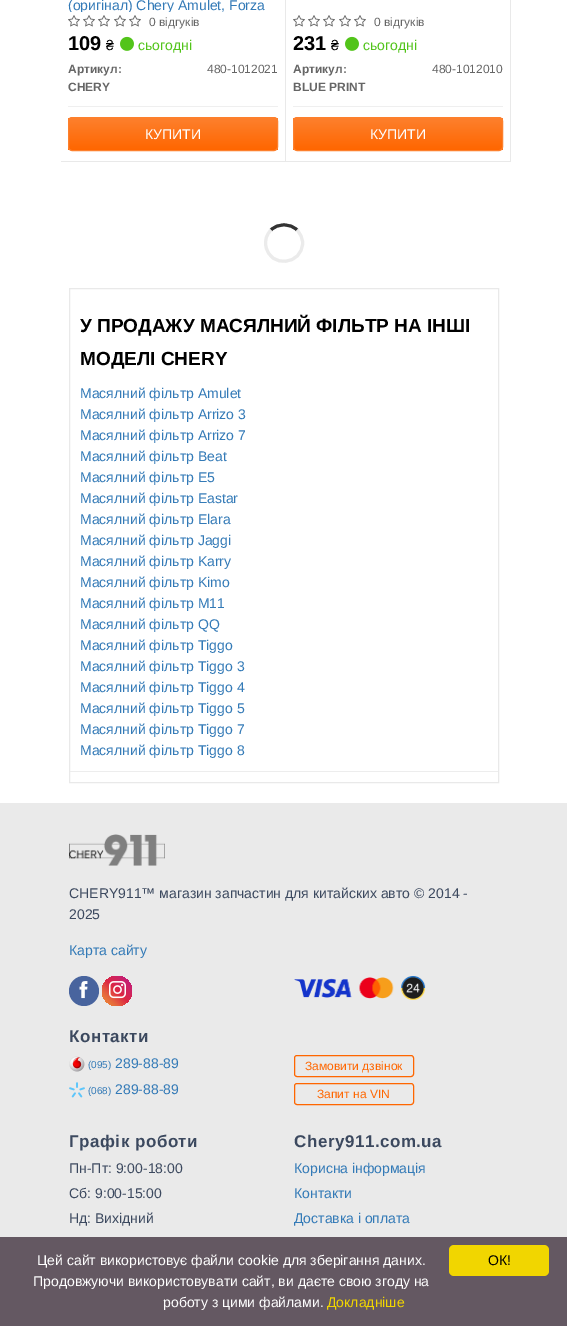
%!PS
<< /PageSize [567 1326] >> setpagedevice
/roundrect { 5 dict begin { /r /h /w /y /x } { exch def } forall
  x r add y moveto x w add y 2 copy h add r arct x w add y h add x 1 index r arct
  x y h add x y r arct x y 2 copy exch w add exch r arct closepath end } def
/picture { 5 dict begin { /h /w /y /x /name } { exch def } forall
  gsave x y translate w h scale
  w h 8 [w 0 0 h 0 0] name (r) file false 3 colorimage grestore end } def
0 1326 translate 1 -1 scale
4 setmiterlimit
1 setgray
0 0 567 1326 rectfill
0.914 setgray
285 0 1 162 rectfill
61 161 225 1 rectfill
gsave
68 0 210 12 rectclip
/LiberationSans-Regular [14 0 0 -14 0 0] selectfont
0.2 0.478 0.718 setrgbcolor
68 10 moveto (\(оригінал\) Chery Amulet, Forza) show
grestore
(img1.rgb) 68 15 12 12 picture
(img1.rgb) 83 15 12 12 picture
(img1.rgb) 98 15 12 12 picture
(img1.rgb) 114 15 12 12 picture
(img1.rgb) 129 15 12 12 picture
/LiberationSans-Regular [12 0 0 -12 0 0] selectfont
0.4 setgray
149 26 moveto (0 відгуків) show
/LiberationSans-Bold [20 0 0 -20 0 0] selectfont
0 setgray
68 50 moveto (109) show
/LiberationSans-Regular [14 0 0 -14 0 0] selectfont
106 50 moveto (₴) show
(img2.rgb) 120 36 14 15 picture
0.322 0.769 0.102 setrgbcolor
138 50 moveto (сьогодні) show
/LiberationSans-Bold [12 0 0 -12 0 0] selectfont
0.4 setgray
68 73 moveto (Артикул:) show
/LiberationSans-Regular [12 0 0 -12 0 0] selectfont
207 73 moveto (480-1012021) show
/LiberationSans-Bold [12 0 0 -12 0 0] selectfont
68 91 moveto (CHERY) show
0.937 setgray
68 106 210 1 rectfill
gsave
68 117 210 34 4 roundrect clip newpath
gsave newpath 68 118 moveto 278 118 lineto 278 150 lineto 68 150 lineto closepath clip newpath
<< /ShadingType 2 /ColorSpace /DeviceRGB /Coords [173 118 173 150] /Extend [true true] /Function << /FunctionType 2 /Domain [0 1] /C0 [0.992 0.502 0.176] /C1 [1 0.4 0] /N 1 >> >> shfill grestore
grestore
0.992 0.502 0.176 setrgbcolor
68.5 117.5 209 33 3.5 roundrect stroke
/LiberationSans-Regular [14 0 0 -14 0 0] selectfont
1 setgray
145 139 moveto (КУПИТИ) show
0.914 setgray
510 0 1 162 rectfill
286 161 225 1 rectfill
(img1.rgb) 293 15 12 12 picture
(img1.rgb) 308 15 12 12 picture
(img1.rgb) 323 15 12 12 picture
(img1.rgb) 339 15 12 12 picture
(img1.rgb) 354 15 12 12 picture
/LiberationSans-Regular [12 0 0 -12 0 0] selectfont
0.4 setgray
374 26 moveto (0 відгуків) show
/LiberationSans-Bold [20 0 0 -20 0 0] selectfont
0 setgray
293 50 moveto (231) show
/LiberationSans-Regular [14 0 0 -14 0 0] selectfont
331 50 moveto (₴) show
(img2.rgb) 345 36 14 15 picture
0.322 0.769 0.102 setrgbcolor
363 50 moveto (сьогодні) show
/LiberationSans-Bold [12 0 0 -12 0 0] selectfont
0.4 setgray
293 73 moveto (Артикул:) show
/LiberationSans-Regular [12 0 0 -12 0 0] selectfont
432 73 moveto (480-1012010) show
/LiberationSans-Bold [12 0 0 -12 0 0] selectfont
293 91 moveto (BLUE PRINT) show
0.937 setgray
293 106 210 1 rectfill
gsave
293 117 210 34 4 roundrect clip newpath
gsave newpath 293 118 moveto 503 118 lineto 503 150 lineto 293 150 lineto closepath clip newpath
<< /ShadingType 2 /ColorSpace /DeviceRGB /Coords [398 118 398 150] /Extend [true true] /Function << /FunctionType 2 /Domain [0 1] /C0 [0.992 0.502 0.176] /C1 [1 0.4 0] /N 1 >> >> shfill grestore
grestore
0.992 0.502 0.176 setrgbcolor
293.5 117.5 209 33 3.5 roundrect stroke
/LiberationSans-Regular [14 0 0 -14 0 0] selectfont
1 setgray
370 139 moveto (КУПИТИ) show
0.2 setgray
3 setlinewidth
newpath 271 230 moveto 278 223 290 223 297 230 curveto stroke
0.922 setgray
newpath 297 230 moveto 300.5 233.5 302.5 238 302.5 243 curveto 302.5 265 270 268.5 266 246.5 curveto 264.5 240.5 266.5 234.5 271 230 curveto stroke
0.914 setgray
1 setlinewidth
69.5 288.5 429 494 rectstroke
/LiberationSans-Bold [19 0 0 -19 0 0] selectfont
0 setgray
80 332 moveto (У ПРОДАЖУ МАСЯЛНИЙ ФІЛЬТР НА ІНШІ) show
80 365 moveto (МОДЕЛІ CHERY) show
0.929 setgray
70 771 428 1 rectfill
/LiberationSans-Regular [14 0 0 -14 0 0] selectfont
0.2 0.478 0.718 setrgbcolor
80 398 moveto (Масялний фільтр Amulet) show
80 419 moveto (Масялний фільтр Arrizo 3) show
80 440 moveto (Масялний фільтр Arrizo 7) show
80 461 moveto (Масялний фільтр Beat) show
80 482 moveto (Масялний фільтр E5) show
80 503 moveto (Масялний фільтр Eastar) show
80 524 moveto (Масялний фільтр Elara) show
80 545 moveto (Масялний фільтр Jaggi) show
80 566 moveto (Масялний фільтр Karry) show
80 587 moveto (Масялний фільтр Kimo) show
80 608 moveto (Масялний фільтр M11) show
80 629 moveto (Масялний фільтр QQ) show
80 650 moveto (Масялний фільтр Tiggo) show
80 671 moveto (Масялний фільтр Tiggo 3) show
80 692 moveto (Масялний фільтр Tiggo 4) show
80 713 moveto (Масялний фільтр Tiggo 5) show
80 734 moveto (Масялний фільтр Tiggo 7) show
80 755 moveto (Масялний фільтр Tiggo 8) show
0.918 setgray
0 803 567 434 rectfill
(img3.rgb) 69 834 96 32 picture
0.235 0.286 0.373 setrgbcolor
69 898 moveto (CHERY911™ магазин запчастин для китайских авто © 2014 -) show
69 919 moveto (2025) show
0.2 0.478 0.718 setrgbcolor
69 955 moveto (Карта сайту) show
0.282 0.392 0.62 setrgbcolor
newpath 84 991 15 0 360 arc closepath fill
(img4.rgb) 79 981 9 18 picture
gsave newpath 117 991 15 0 360 arc closepath clip newpath
<< /ShadingType 2 /ColorSpace /DeviceRGB /Coords [102 1006 132 976] /Extend [true true] /Function << /FunctionType 3 /Domain [0 1] /Functions [<< /FunctionType 2 /Domain [0 1] /C0 [0.941 0.58 0.2] /C1 [0.902 0.408 0.235] /N 1 >> << /FunctionType 2 /Domain [0 1] /C0 [0.902 0.408 0.235] /C1 [0.863 0.153 0.263] /N 1 >> << /FunctionType 2 /Domain [0 1] /C0 [0.863 0.153 0.263] /C1 [0.8 0.137 0.4] /N 1 >> << /FunctionType 2 /Domain [0 1] /C0 [0.8 0.137 0.4] /C1 [0.737 0.094 0.533] /N 1 >>] /Bounds [0.25 0.5 0.75] /Encode [0 1 0 1 0 1 0 1] >> >> shfill grestore
(img5.rgb) 109 981 17 18 picture
(img6.rgb) 294 976 132 24 picture
/LiberationSans-Bold [17 0 0 -17 0 0] selectfont
0.235 0.286 0.373 setrgbcolor
69 1042 moveto 0.5 0 (Контакти) ashow
(img7.rgb) 69 1056 16 16 picture
/LiberationSans-Regular [10 0 0 -10 0 0] selectfont
0.2 0.478 0.718 setrgbcolor
88 1068 moveto (\(095\)) show
/LiberationSans-Regular [14 0 0 -14 0 0] selectfont
115 1068 moveto (289-88-89) show
(img8.rgb) 69 1082 16 16 picture
/LiberationSans-Regular [10 0 0 -10 0 0] selectfont
88 1094 moveto (\(068\)) show
/LiberationSans-Regular [14 0 0 -14 0 0] selectfont
115 1094 moveto (289-88-89) show
1 0.4 0 setrgbcolor
294.5 1055.5 119 21 2.5 roundrect stroke
/LiberationSans-Regular [12 0 0 -12 0 0] selectfont
305 1070 moveto (Замовити дзвінок) show
294.5 1083.5 119 21 2.5 roundrect stroke
317 1098 moveto (Запит на VIN) show
/LiberationSans-Bold [17 0 0 -17 0 0] selectfont
0.235 0.286 0.373 setrgbcolor
69 1147 moveto 0.5 0 (Графік роботи) ashow
/LiberationSans-Regular [14 0 0 -14 0 0] selectfont
69 1173 moveto (Пн-Пт: 9:00-18:00) show
69 1198 moveto (Сб: 9:00-15:00) show
69 1223 moveto (Нд: Вихідний) show
/LiberationSans-Bold [17 0 0 -17 0 0] selectfont
294 1147 moveto 0.5 0 (Chery911.com.ua) ashow
/LiberationSans-Regular [14 0 0 -14 0 0] selectfont
0.2 0.478 0.718 setrgbcolor
294 1173 moveto (Корисна інформація) show
294 1198 moveto (Контакти) show
294 1223 moveto (Доставка і оплата) show
0.392 0.345 0.384 setrgbcolor
0 1237 567 89 rectfill
1 setgray
37 1265 moveto (Цей сайт використовує файли cookie для зберігання даних.) show
33 1286 moveto (Продовжуючи використовувати сайт, ви даєте свою згоду на) show
163 1307 moveto (роботу з цими файлами.) show
0.945 0.839 0 setrgbcolor
327 1307 moveto (Докладніше) show
449 1245 100 31 5 roundrect fill
0 setgray
488 1265 moveto (ОК!) show
showpage
